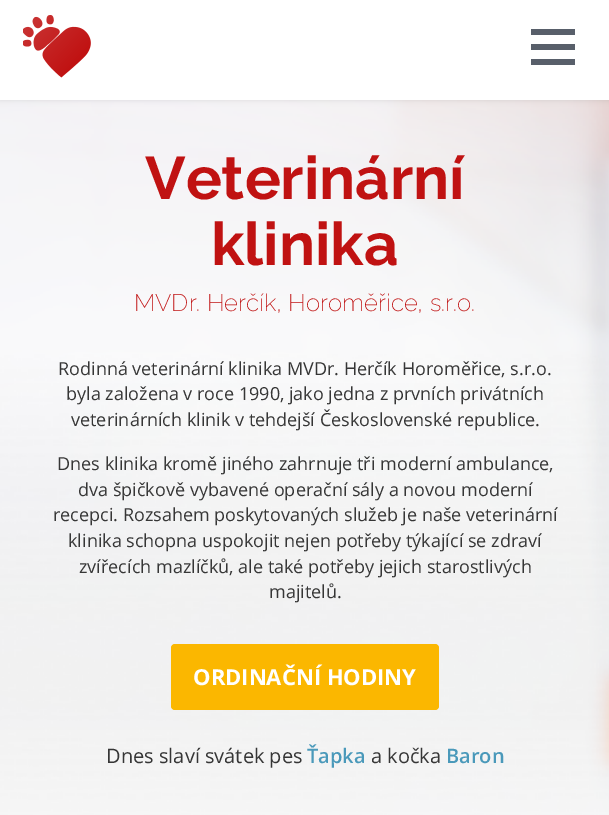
%!PS
<< /PageSize [609 815] /PageUsesTransparency true >> setpagedevice
/alpha { dup .setfillconstantalpha .setstrokeconstantalpha } def
/roundrect { 5 dict begin { /r /h /w /y /x } { exch def } forall
  x r add y moveto x w add y 2 copy h add r arct x w add y h add x 1 index r arct
  x y h add x y r arct x y 2 copy exch w add exch r arct closepath end } def
/shadow { 12 dict begin { /a /b /q /h /w /y /x } { exch def } forall gsave /was 0 def
  9 -2 -9 { dup b mul 4 div /e exch def 1 sub .425 mul 2.718 exch exp 1 add a .99 .min exch div /now exch def
    1 1 now sub 1 was sub div sub alpha /was now def
    w h .min e 2 mul add 0 gt { x e sub y e sub w e 2 mul add h e 2 mul add
      q e add b .6 mul add w h .min 2 div e add .min 0 .max roundrect fill } if } for grestore end } def
/picture { 5 dict begin { /h /w /y /x /name } { exch def } forall
  gsave x y translate w h scale
  w h 8 [w 0 0 h 0 0] name (r) file false 3 colorimage grestore end } def
0 .pushpdf14devicefilter
0 815 translate 1 -1 scale
4 setmiterlimit
1 setgray
0 0 609 815 rectfill
(img2.rgb) 0 100 609 715 picture
0 setgray
0 0 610 100 0 3 0.1 shadow
1 setgray
0 0 609 100 rectfill
(img1.rgb) 23 15 68 63 picture
0.345 0.373 0.416 setrgbcolor
531 29 44 6 rectfill
531 44 44 6 rectfill
531 59 44 6 rectfill
/Raleway-Bold [60 0 0 -60 0 0] selectfont
0.753 0.071 0.071 setrgbcolor
145 199 moveto (Veterinární) show
211 265 moveto (klinika) show
/Raleway-ExtraLight [24 0 0 -24 0 0] selectfont
134 311 moveto (MVDr. Herčík, Horoměřice, s.r.o.) show
/OpenSans-Regular [18 0 0 -18 0 0] selectfont
0.212 setgray
58 375 moveto (Rodinná veterinární klinika MVDr. Herčík Horoměřice, s.r.o.) show
66 400 moveto (byla založena v roce 1990, jako jedna z prvních privátních) show
71 426 moveto (veterinárních klinik v tehdejší Československé republice.) show
57 470 moveto (Dnes klinika kromě jiného zahrnuje tři moderní ambulance,) show
78 496 moveto (dva špičkově vybavené operační sály a novou moderní) show
53 521 moveto (recepci. Rozsahem poskytovaných služeb je naše veterinární) show
68 547 moveto (klinika schopna uspokojit nejen potřeby týkající se zdraví) show
79 573 moveto (zvířecích mazlíčků, ale také potřeby jejich starostlivých) show
269 598 moveto (majitelů.) show
0.984 0.718 0 setrgbcolor
171 644 268 66 4 roundrect fill
/OpenSans-Bold [22 0 0 -22 0 0] selectfont
1 setgray
193 685 moveto (ORDINAČNÍ HODINY) show
/OpenSans-Regular [20 0 0 -20 0 0] selectfont
0.212 setgray
106 763 moveto (Dnes slaví svátek pes) show
/OpenSans-SemiBold [20 0 0 -20 0 0] selectfont
0.29 0.6 0.729 setrgbcolor
307 763 moveto (Ťapka) show
/OpenSans-Regular [20 0 0 -20 0 0] selectfont
0.212 setgray
371 763 moveto (a kočka) show
/OpenSans-SemiBold [20 0 0 -20 0 0] selectfont
0.29 0.6 0.729 setrgbcolor
446 763 moveto (Baron) show
.poppdf14devicefilter showpage
